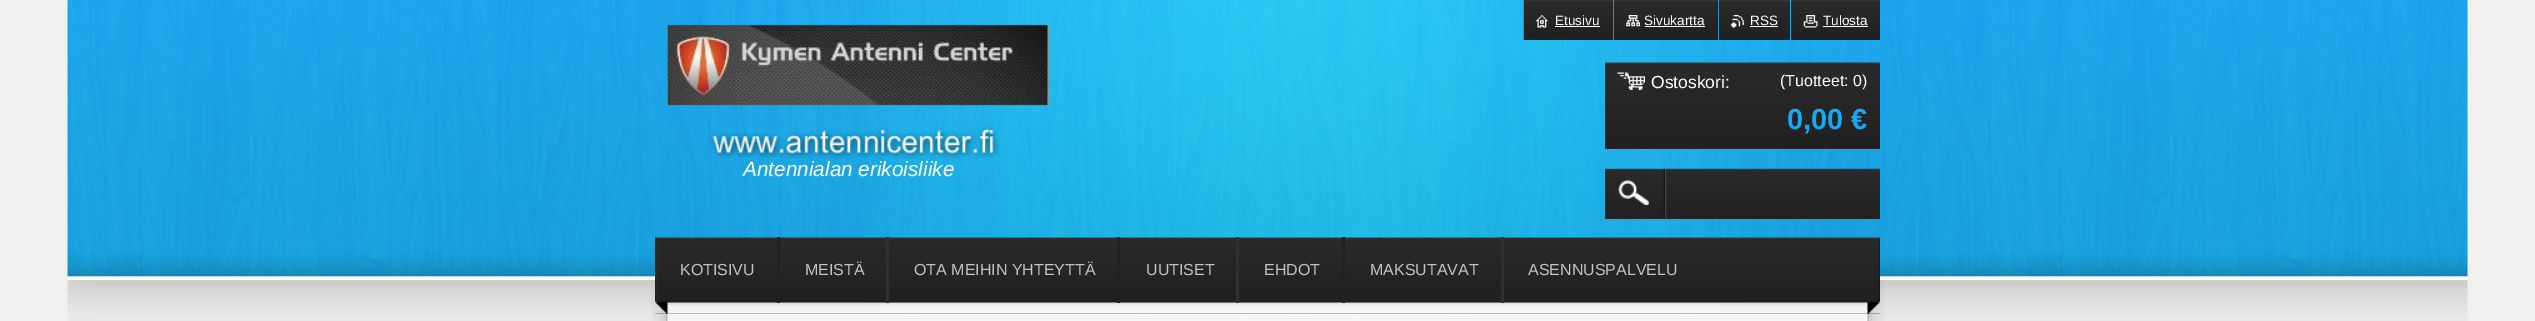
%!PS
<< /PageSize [2535 321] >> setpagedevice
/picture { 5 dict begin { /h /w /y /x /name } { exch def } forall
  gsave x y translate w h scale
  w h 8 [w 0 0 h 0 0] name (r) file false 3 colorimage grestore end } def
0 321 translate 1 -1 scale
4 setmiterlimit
0.941 0.941 0.933 setrgbcolor
0 0 2535 321 rectfill
(img1.rgb) 651 279 1233 42 picture
(img2.rgb) 67 0 2401 321 picture
0.145 setgray
1612 0 1 40 rectfill
(img3.rgb) 1523 0 90 40 picture
(img4.rgb) 1536 15 12 13 picture
/LiberationSans-Regular [13.5 0 0 -13.5 0 0] selectfont
1 setgray
1555 25 moveto (Etusivu) show
1555 26 45 1 rectfill
0.145 setgray
1717 0 1 40 rectfill
(img5.rgb) 1613 0 105 40 picture
(img6.rgb) 1626 15 14 12 picture
1 setgray
1644 25 moveto (Sivukartta) show
1645 26 60 1 rectfill
(img7.rgb) 1718 0 72 40 picture
(img8.rgb) 1731 15 13 13 picture
1750 25 moveto (RSS) show
1750 26 28 1 rectfill
(img9.rgb) 1791 0 89 40 picture
(img10.rgb) 1803 15 15 13 picture
1823 25 moveto (Tulosta) show
1823 26 45 1 rectfill
0.145 setgray
1605 148 275 1 rectfill
(img11.rgb) 1605 62 275 86 picture
(img12.rgb) 1617 72 28 18 picture
/LiberationSans-Regular [17.5 0 0 -17.5 0 0] selectfont
1 setgray
1651 88 moveto (Ostoskori:) show
/LiberationSans-Regular [16 0 0 -16 0 0] selectfont
1780 86 moveto (\(Tuotteet: 0\)) show
/LiberationSans-Bold [29 0 0 -29 0 0] selectfont
0.082 0.663 0.949 setrgbcolor
1787 129 moveto (0,00 €) show
(img13.rgb) 667 24 382 135 picture
/LiberationSans-Italic [20.75 0 0 -20.75 0 0] selectfont
1 setgray
743 176 moveto (Antennialan erikoisliike) show
0.145 setgray
1605 218 275 1 rectfill
(img14.rgb) 1605 168 275 50 picture
(img15.rgb) 1618 180 31 25 picture
(img16.rgb) 1663 168 4 51 picture
(img17.rgb) 655 237 1225 77 picture
0.129 setgray
777 237 3 66 rectfill
/LiberationSans-Regular [16 0 0 -16 0 0] selectfont
0.761 setgray
680 275 moveto (KOTISIVU) show
0.188 setgray
886 237 3 66 rectfill
0.761 setgray
805 275 moveto (MEISTÄ) show
0.129 setgray
1117 237 3 66 rectfill
0.761 setgray
914 275 moveto (OTA MEIHIN YHTEYTTÄ) show
0.188 setgray
1236 237 3 66 rectfill
0.761 setgray
1146 275 moveto (UUTISET) show
0.129 setgray
1342 237 3 66 rectfill
0.761 setgray
1264 275 moveto (EHDOT) show
0.188 setgray
1501 237 3 66 rectfill
0.761 setgray
1370 275 moveto (MAKSUTAVAT) show
1528 275 moveto (ASENNUSPALVELU) show
showpage
